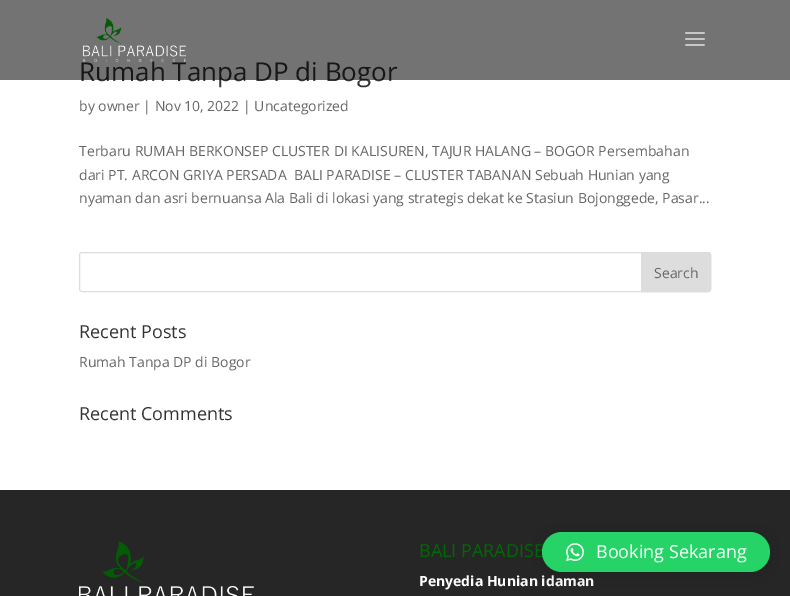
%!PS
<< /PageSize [790 596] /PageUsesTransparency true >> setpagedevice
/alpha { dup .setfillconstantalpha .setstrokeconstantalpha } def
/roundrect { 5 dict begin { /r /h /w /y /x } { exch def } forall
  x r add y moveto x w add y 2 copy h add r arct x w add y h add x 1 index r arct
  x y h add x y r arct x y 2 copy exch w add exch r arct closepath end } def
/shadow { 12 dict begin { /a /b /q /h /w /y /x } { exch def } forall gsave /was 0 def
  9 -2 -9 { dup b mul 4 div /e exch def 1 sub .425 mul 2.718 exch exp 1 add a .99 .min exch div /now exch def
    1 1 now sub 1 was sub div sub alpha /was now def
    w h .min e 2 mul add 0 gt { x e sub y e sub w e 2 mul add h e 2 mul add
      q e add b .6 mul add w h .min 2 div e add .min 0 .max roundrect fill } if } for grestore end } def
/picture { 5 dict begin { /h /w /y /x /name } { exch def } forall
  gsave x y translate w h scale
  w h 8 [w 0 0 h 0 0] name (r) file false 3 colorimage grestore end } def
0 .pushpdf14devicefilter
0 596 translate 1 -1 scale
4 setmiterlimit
1 setgray
0 0 790 596 rectfill
/OpenSans-Regular [26 0 0 -26 0 0] selectfont
0.2 setgray
79 81 moveto (Rumah Tanpa DP di Bogor) show
0.55 alpha
0 setgray
0 0 790 80 rectfill
1 alpha
(img1.rgb) 83 18 103 44 picture
(img2.rgb) 685 32 20 14 picture
/OpenSans-Regular [14 0 0 -14 0 0] selectfont
0.4 setgray
79 111 moveto (by owner | Nov 10, 2022 | Uncategorized) show
79 156 moveto (Terbaru RUMAH BERKONSEP CLUSTER DI KALISUREN, TAJUR HALANG – BOGOR Persembahan) show
79 180 moveto (dari PT. ARCON GRIYA PERSADA  BALI PARADISE – CLUSTER TABANAN Sebuah Hunian yang) show
79 203 moveto (nyaman dan asri bernuansa Ala Bali di lokasi yang strategis dekat ke Stasiun Bojonggede, Pasar...) show
0.867 setgray
79.5 252.5 631 39 2.5 roundrect stroke
newpath 641.5 252.5 moveto 708 252.5 lineto 709.5 252.5 710.5 253.5 710.5 255 curveto 710.5 289 lineto 710.5 290.5 709.5 291.5 708 291.5 curveto 641.5 291.5 lineto closepath gsave fill grestore
stroke
0.4 setgray
654 278 moveto (Search) show
/OpenSans-Regular [18 0 0 -18 0 0] selectfont
0.2 setgray
79 338 moveto (Recent Posts) show
/OpenSans-Regular [14 0 0 -14 0 0] selectfont
0.4 setgray
79 367 moveto (Rumah Tanpa DP di Bogor) show
/OpenSans-Regular [18 0 0 -18 0 0] selectfont
0.2 setgray
79 420 moveto (Recent Comments) show
0.149 setgray
0 490 790 106 rectfill
(img3.rgb) 79 541 175 55 picture
0 0.408 0.02 setrgbcolor
419 557 moveto (BALI PARADISE) show
/OpenSans-Bold [14 0 0 -14 0 0] selectfont
1 setgray
419 586 moveto (Penyedia Hunian idaman) show
0 setgray
542 534 228 40 20 16 0.16 shadow
0.145 0.827 0.4 setrgbcolor
542 532 228 40 20 roundrect fill
(img4.rgb) 566 543 18 19 picture
/OpenSans-Regular [18 0 0 -18 0 0] selectfont
1 setgray
596 558 moveto (Booking Sekarang) show
.poppdf14devicefilter showpage
